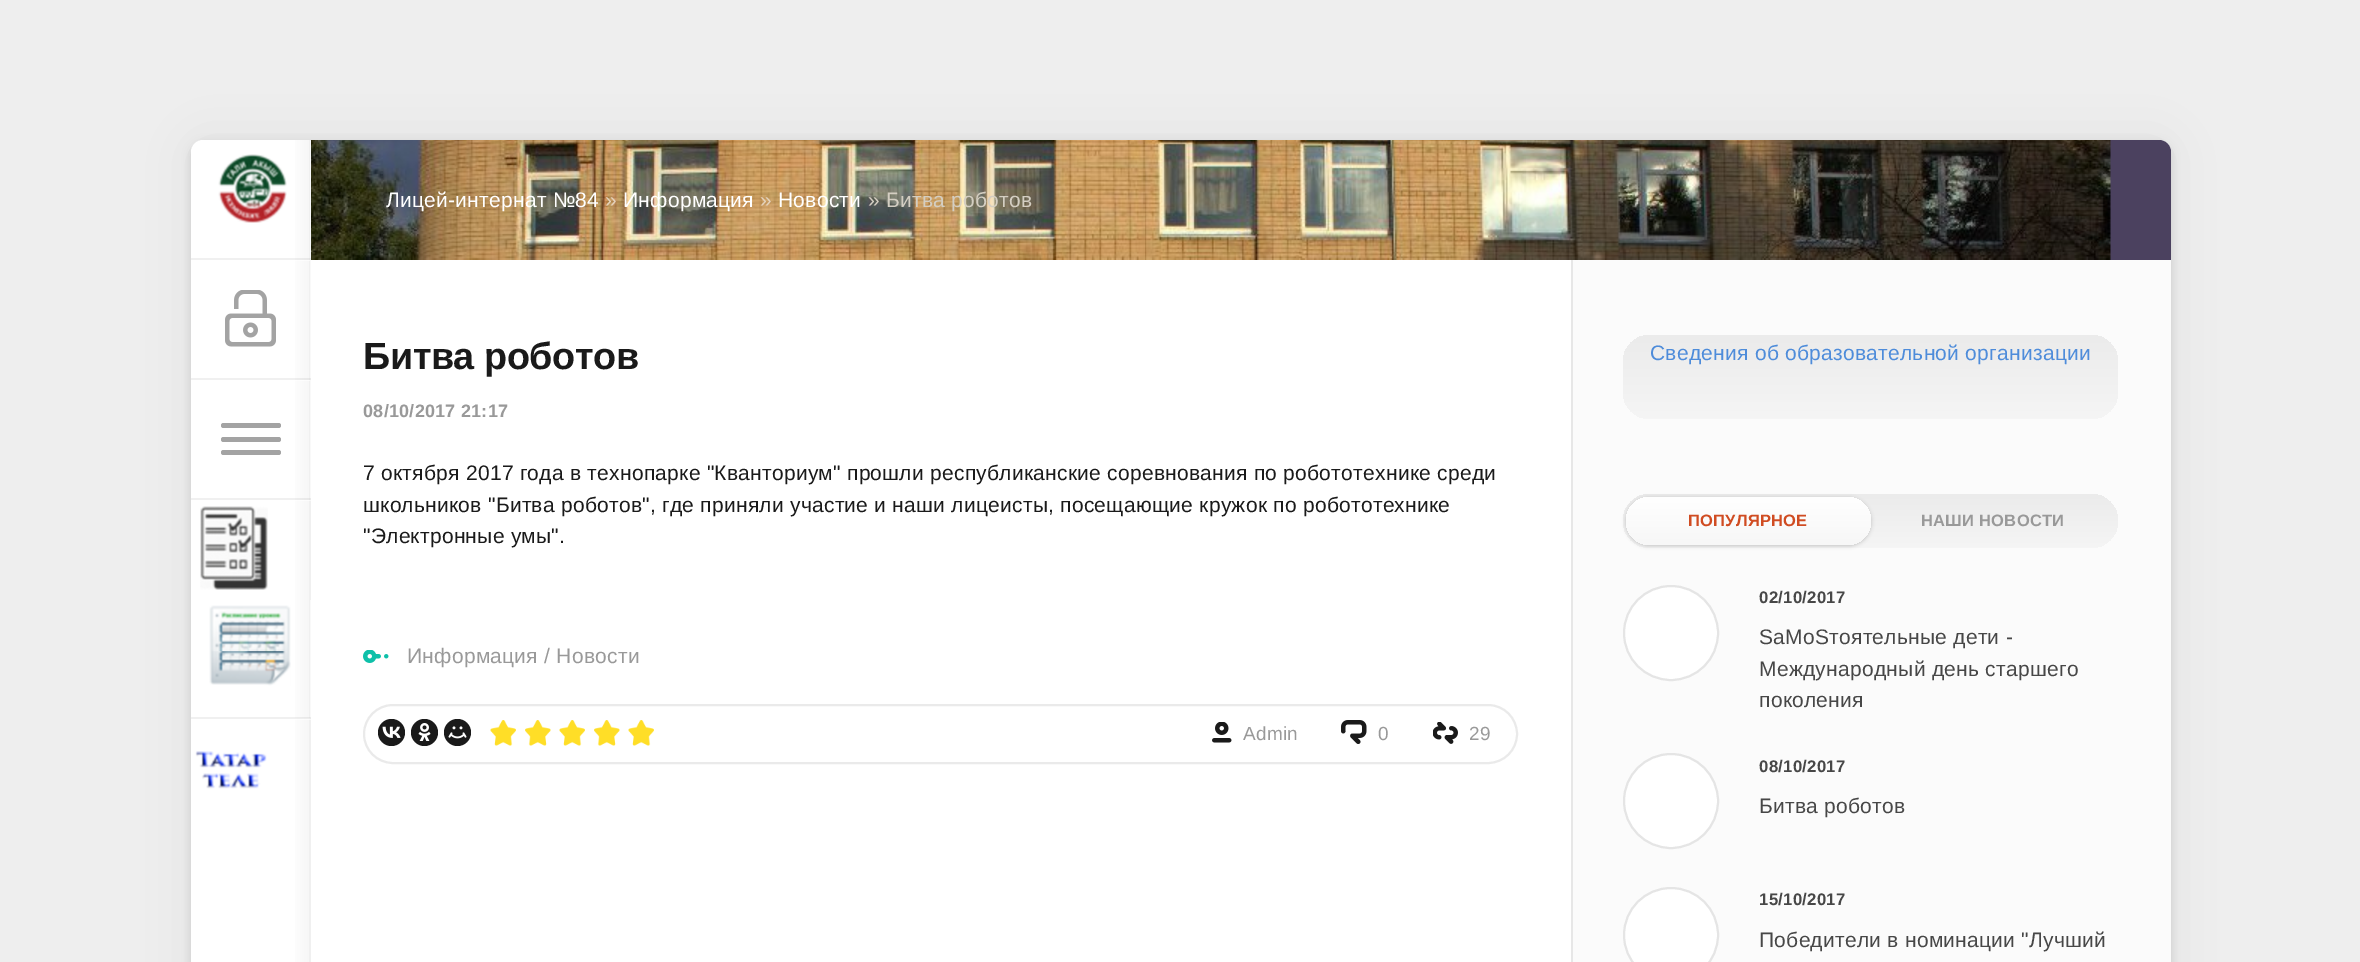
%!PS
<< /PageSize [2360 962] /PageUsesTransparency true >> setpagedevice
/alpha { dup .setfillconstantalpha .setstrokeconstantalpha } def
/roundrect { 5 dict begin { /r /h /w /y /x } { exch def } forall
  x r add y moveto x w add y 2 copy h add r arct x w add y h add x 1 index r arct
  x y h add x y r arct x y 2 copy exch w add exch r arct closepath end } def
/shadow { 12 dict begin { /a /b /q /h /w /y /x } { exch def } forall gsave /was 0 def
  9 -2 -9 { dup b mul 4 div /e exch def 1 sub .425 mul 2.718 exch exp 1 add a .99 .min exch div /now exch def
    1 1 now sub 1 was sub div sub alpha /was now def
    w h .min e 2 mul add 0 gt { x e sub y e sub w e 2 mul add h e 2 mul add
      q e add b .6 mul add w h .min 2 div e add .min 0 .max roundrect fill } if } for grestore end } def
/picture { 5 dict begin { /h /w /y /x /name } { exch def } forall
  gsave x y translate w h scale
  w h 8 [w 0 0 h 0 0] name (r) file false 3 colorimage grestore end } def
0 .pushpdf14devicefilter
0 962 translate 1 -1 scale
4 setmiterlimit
0.933 setgray
0 0 2360 962 rectfill
0 setgray
191 140 1980 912 12 26 0.06 shadow
191 143 1980 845 12 4.5 0.11 shadow
1 setgray
191 140 1980 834 12 roundrect fill
gsave newpath 295 140 moveto 309 140 lineto 309 962 lineto 295 962 lineto closepath clip newpath
<< /ShadingType 2 /ColorSpace /DeviceRGB /Coords [289 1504 309 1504] /Extend [true true] /Function << /FunctionType 2 /Domain [0 1] /C0 [1 1 1] /C1 [0.969 0.969 0.969] /N 1 >> >> shfill grestore
0.941 setgray
309 140 2 822 rectfill
0.6 alpha
1 setgray
newpath 191 260 moveto 191 261 lineto 311 261 lineto 311 141 lineto 310 141 lineto 310 260 lineto closepath fill
0.06 alpha
0 setgray
191 258 120 2 rectfill
1 alpha
(img1.rgb) 218 154 69 69 picture
0.6 alpha
1 setgray
newpath 191 380 moveto 191 381 lineto 311 381 lineto 311 261 lineto 310 261 lineto 310 380 lineto closepath fill
0.06 alpha
0 setgray
191 378 120 2 rectfill
1 alpha
(img2.rgb) 225 290 51 57 picture
0.6 alpha
1 setgray
newpath 191 500 moveto 191 501 lineto 311 501 lineto 311 381 lineto 310 381 lineto 310 500 lineto closepath fill
0.06 alpha
0 setgray
191 498 120 2 rectfill
1 alpha
0.639 setgray
221 423 60 5 2.5 roundrect fill
221 437 60 5 2.5 roundrect fill
221 450 60 5 2.5 roundrect fill
(img3.rgb) 200 506 68 84 picture
0.6 alpha
1 setgray
newpath 191 718 moveto 191 720 lineto 311 720 lineto 311 600 lineto 310 600 lineto 310 718 lineto closepath fill
0.06 alpha
0 setgray
191 717 120 2 rectfill
1 alpha
(img4.rgb) 209 605 82 81 picture
(img5.rgb) 195 751 72 38 picture
0.294 0.255 0.373 setrgbcolor
newpath 311 140 moveto 2159 140 lineto 2165.5 140 2171 145.5 2171 152 curveto 2171 260 lineto 311 260 lineto closepath fill
(img6.rgb) 311 140 1800 120 picture
/LiberationSans-Regular [21 0 0 -21 0 0] selectfont
1 setgray
386 207 moveto 0.25 0 (Лицей-интернат №84) ashow
0.894 0.824 0.737 setrgbcolor
605 207 moveto 0.25 0 (») ashow
1 setgray
623 207 moveto 0.25 0 (Информация) ashow
0.894 0.824 0.737 setrgbcolor
760 207 moveto 0.25 0 (») ashow
1 setgray
778 207 moveto 0.25 0 (Новости) ashow
0.831 0.808 0.761 setrgbcolor
868 207 moveto 0.25 0 (» Битва роботов) ashow
/LiberationSans-Bold [37.75 0 0 -37.75 0 0] selectfont
0.102 setgray
363 369 moveto -0.4 0 (Битва роботов) ashow
/LiberationSans-Bold [18 0 0 -18 0 0] selectfont
0.6 setgray
363 417 moveto 0.25 0 (08/10/2017 21:17) ashow
/LiberationSans-Regular [21 0 0 -21 0 0] selectfont
0.102 setgray
363 480 moveto 0.25 0 (7 октября 2017 года в технопарке "Кванториум" прошли республиканские соревнования по робототехнике среди) ashow
363 512 moveto 0.25 0 (школьников "Битва роботов", где приняли участие и наши лицеисты, посещающие кружок по робототехнике) ashow
363 543 moveto 0.25 0 ("Электронные умы".) ashow
(img7.rgb) 363 650 26 13 picture
0.6 setgray
407 663 moveto 0.25 0 (Информация / Новости) ashow
0.918 setgray
2 setlinewidth
364 705 1153 58 29 roundrect stroke
0.102 setgray
newpath 391.5 732.5 13.5 0 360 arc closepath fill
(img8.rgb) 382 726 19 12 picture
newpath 424.5 732.5 13.5 0 360 arc closepath fill
(img9.rgb) 418 723 13 18 picture
newpath 457.5 732.5 13.5 0 360 arc closepath fill
(img10.rgb) 448 726 19 13 picture
(img11.rgb) 490 719 164 27 picture
(img12.rgb) 1212 722 20 21 picture
/LiberationSans-Regular [19 0 0 -19 0 0] selectfont
0.6 setgray
1243 740 moveto 0.25 0 (Admin) ashow
(img13.rgb) 1341 720 26 24 picture
1378 740 moveto 0.25 0 (0) ashow
(img14.rgb) 1433 722 25 22 picture
1469 740 moveto 0.25 0 (29) ashow
0.984 setgray
1573 260 598 702 rectfill
0.906 setgray
1571 260 2 702 rectfill
gsave 1623 335 495 84 27 roundrect clip newpath
<< /ShadingType 2 /ColorSpace /DeviceRGB /Coords [1871 334 1871 419] /Extend [true true] /Function << /FunctionType 2 /Domain [0 1] /C0 [0.922 0.922 0.922] /C1 [0.961 0.961 0.961] /N 1 >> >> shfill grestore
/LiberationSans-Regular [21 0 0 -21 0 0] selectfont
0.306 0.549 0.855 setrgbcolor
1650 360 moveto 0.25 0 (Сведения об образовательной организации) ashow
gsave 1623 494 495 54 27 roundrect clip newpath
<< /ShadingType 2 /ColorSpace /DeviceRGB /Coords [1871 494 1871 548] /Extend [true true] /Function << /FunctionType 2 /Domain [0 1] /C0 [0.922 0.922 0.922] /C1 [0.961 0.961 0.961] /N 1 >> >> shfill grestore
0 setgray
1626 498 245 48 24 2 0.2 shadow
gsave 1626 497 245 48 24 roundrect clip newpath
<< /ShadingType 2 /ColorSpace /DeviceRGB /Coords [1748 497 1748 545] /Extend [true true] /Function << /FunctionType 2 /Domain [0 1] /C0 [1 1 1] /C1 [0.969 0.969 0.969] /N 1 >> >> shfill grestore
/LiberationSans-Bold [16.5 0 0 -16.5 0 0] selectfont
0.816 0.298 0.133 setrgbcolor
1688 526 moveto 0.25 0 (ПОПУЛЯРНОЕ) ashow
0.6 setgray
1921 526 moveto 0.25 0 (НАШИ НОВОСТИ) ashow
1 setgray
newpath 1671 633 47 0 360 arc closepath gsave fill grestore
0.898 setgray
stroke
/LiberationSans-Bold [16.75 0 0 -16.75 0 0] selectfont
0.278 setgray
1759 603 moveto 0.25 0 (02/10/2017) ashow
/LiberationSans-Regular [21 0 0 -21 0 0] selectfont
1759 644 moveto 0.25 0 (SaМoSтоятельные дети -) ashow
1759 676 moveto 0.25 0 (Международный день старшего) ashow
1759 707 moveto 0.25 0 (поколения) ashow
1 setgray
newpath 1671 801 47 0 360 arc closepath gsave fill grestore
0.898 setgray
stroke
/LiberationSans-Bold [16.75 0 0 -16.75 0 0] selectfont
0.278 setgray
1759 772 moveto 0.25 0 (08/10/2017) ashow
/LiberationSans-Regular [21 0 0 -21 0 0] selectfont
1759 813 moveto 0.25 0 (Битва роботов) ashow
1 setgray
newpath 1671 935 47 0 360 arc closepath gsave fill grestore
0.898 setgray
stroke
/LiberationSans-Bold [16.75 0 0 -16.75 0 0] selectfont
0.278 setgray
1759 905 moveto 0.25 0 (15/10/2017) ashow
/LiberationSans-Regular [21 0 0 -21 0 0] selectfont
1759 947 moveto 0.25 0 (Победители в номинации "Лучший) ashow
.poppdf14devicefilter showpage
